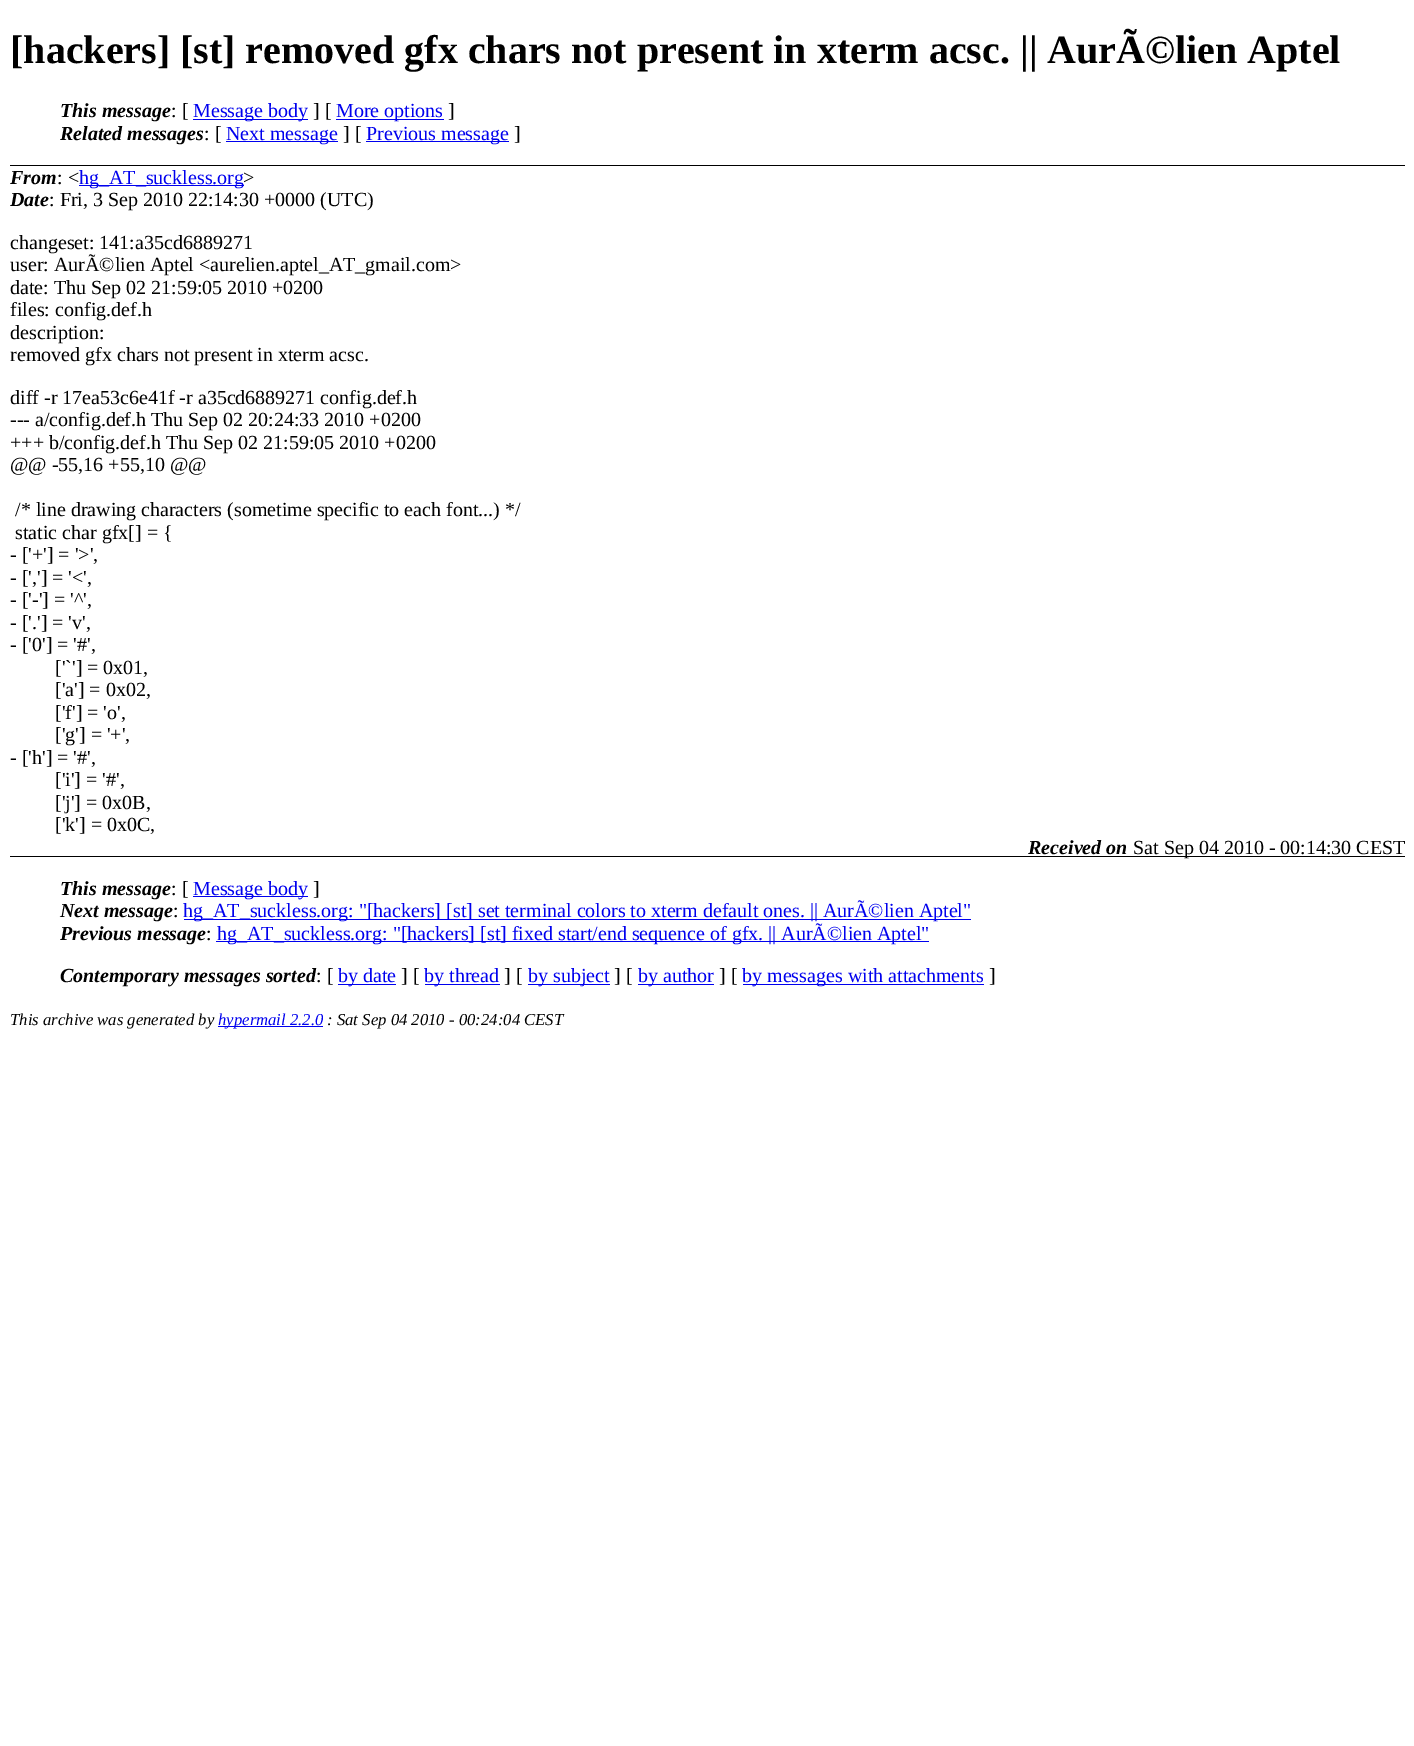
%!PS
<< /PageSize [1414 1746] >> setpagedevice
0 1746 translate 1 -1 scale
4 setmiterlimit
1 setgray
0 0 1414 1746 rectfill
0 setgray
10 165 1395 1 rectfill
/LiberationSerif-Bold [40 0 0 -40 0 0] selectfont
10 63 moveto ([hackers] [st] removed gfx chars not present in xterm acsc. || AurÃ©lien Aptel) show
/LiberationSerif-BoldItalic [20 0 0 -20 0 0] selectfont
60 117 moveto (This message) show
/LiberationSerif-Regular [20 0 0 -20 0 0] selectfont
171 117 moveto (: [) show
0 0 0.933 setrgbcolor
193 119 115 1 rectfill
193 117 moveto (Message body) show
0 setgray
313 117 moveto (] [) show
0 0 0.933 setrgbcolor
336 119 108 1 rectfill
336 117 moveto (More options) show
0 setgray
448 117 moveto (]) show
/LiberationSerif-BoldItalic [20 0 0 -20 0 0] selectfont
60 140 moveto (Related messages) show
/LiberationSerif-Regular [20 0 0 -20 0 0] selectfont
204 140 moveto (: [) show
0 0 0.933 setrgbcolor
226 141 112 1 rectfill
226 140 moveto (Next message) show
0 setgray
343 140 moveto (] [) show
0 0 0.933 setrgbcolor
366 141 143 1 rectfill
366 140 moveto (Previous message) show
0 setgray
514 140 moveto (]) show
/LiberationSerif-BoldItalic [20 0 0 -20 0 0] selectfont
10 184 moveto (From) show
/LiberationSerif-Regular [20 0 0 -20 0 0] selectfont
57 184 moveto (: <) show
0 0 0.933 setrgbcolor
79 185 165 1 rectfill
79 184 moveto (hg_AT_suckless.org) show
0 setgray
243 184 moveto (>) show
/LiberationSerif-BoldItalic [20 0 0 -20 0 0] selectfont
10 206 moveto (Date) show
/LiberationSerif-Regular [20 0 0 -20 0 0] selectfont
49 206 moveto (: Fri, 3 Sep 2010 22:14:30 +0000 \(UTC\)) show
10 249 moveto (changeset: 141:a35cd6889271) show
10 271 moveto (user: AurÃ©lien Aptel <aurelien.aptel_AT_gmail.com>) show
10 294 moveto (date: Thu Sep 02 21:59:05 2010 +0200) show
10 316 moveto (files: config.def.h) show
10 339 moveto (description:) show
10 361 moveto (removed gfx chars not present in xterm acsc.) show
10 404 moveto (diff -r 17ea53c6e41f -r a35cd6889271 config.def.h) show
10 426 moveto (--- a/config.def.h Thu Sep 02 20:24:33 2010 +0200) show
10 449 moveto (+++ b/config.def.h Thu Sep 02 21:59:05 2010 +0200) show
10 471 moveto (@@ -55,16 +55,10 @@) show
15 516 moveto (/* line drawing characters \(sometime specific to each font...\) */) show
15 539 moveto (static char gfx[] = {) show
10 561 moveto (- ['+'] = '>',) show
10 584 moveto (- [','] = '<',) show
10 606 moveto (- ['-'] = '^',) show
10 629 moveto (- ['.'] = 'v',) show
10 651 moveto (- ['0'] = '#',) show
55 674 moveto (['`'] = 0x01,) show
55 696 moveto (['a'] = 0x02,) show
55 719 moveto (['f'] = 'o',) show
55 741 moveto (['g'] = '+',) show
10 764 moveto (- ['h'] = '#',) show
55 786 moveto (['i'] = '#',) show
55 809 moveto (['j'] = 0x0B,) show
55 831 moveto (['k'] = 0x0C,) show
/LiberationSerif-BoldItalic [20 0 0 -20 0 0] selectfont
1028 854 moveto (Received on) show
10 856 1395 1 rectfill
/LiberationSerif-Regular [20 0 0 -20 0 0] selectfont
1133 854 moveto (Sat Sep 04 2010 - 00:14:30 CEST) show
/LiberationSerif-BoldItalic [20 0 0 -20 0 0] selectfont
60 895 moveto (This message) show
/LiberationSerif-Regular [20 0 0 -20 0 0] selectfont
171 895 moveto (: [) show
0 0 0.933 setrgbcolor
193 896 115 1 rectfill
193 895 moveto (Message body) show
0 setgray
313 895 moveto (]) show
/LiberationSerif-BoldItalic [20 0 0 -20 0 0] selectfont
60 917 moveto (Next message) show
/LiberationSerif-Regular [20 0 0 -20 0 0] selectfont
173 917 moveto (:) show
0 0 0.933 setrgbcolor
184 919 787 1 rectfill
183 917 moveto (hg_AT_suckless.org: "[hackers] [st] set terminal colors to xterm default ones. || AurÃ©lien Aptel") show
/LiberationSerif-BoldItalic [20 0 0 -20 0 0] selectfont
0 setgray
60 940 moveto (Previous message) show
/LiberationSerif-Regular [20 0 0 -20 0 0] selectfont
206 940 moveto (:) show
0 0 0.933 setrgbcolor
216 941 713 1 rectfill
217 940 moveto (hg_AT_suckless.org: "[hackers] [st] fixed start/end sequence of gfx. || AurÃ©lien Aptel") show
/LiberationSerif-BoldItalic [20 0 0 -20 0 0] selectfont
0 setgray
60 982 moveto (Contemporary messages sorted) show
/LiberationSerif-Regular [20 0 0 -20 0 0] selectfont
316 982 moveto (: [) show
0 0 0.933 setrgbcolor
338 984 58 1 rectfill
338 982 moveto (by date) show
0 setgray
401 982 moveto (] [) show
0 0 0.933 setrgbcolor
425 984 75 1 rectfill
424 982 moveto (by thread) show
0 setgray
504 982 moveto (] [) show
0 0 0.933 setrgbcolor
528 984 82 1 rectfill
528 982 moveto (by subject) show
0 setgray
614 982 moveto (] [) show
0 0 0.933 setrgbcolor
638 984 76 1 rectfill
638 982 moveto (by author) show
0 setgray
719 982 moveto (] [) show
0 0 0.933 setrgbcolor
743 984 241 1 rectfill
742 982 moveto (by messages with attachments) show
0 setgray
989 982 moveto (]) show
/LiberationSerif-Italic [16.7 0 0 -16.7 0 0] selectfont
10 1025 moveto (This archive was generated by) show
0 0 0.933 setrgbcolor
218 1026 105 1 rectfill
218 1025 moveto (hypermail 2.2.0) show
0 setgray
327 1025 moveto (: Sat Sep 04 2010 - 00:24:04 CEST) show
showpage
